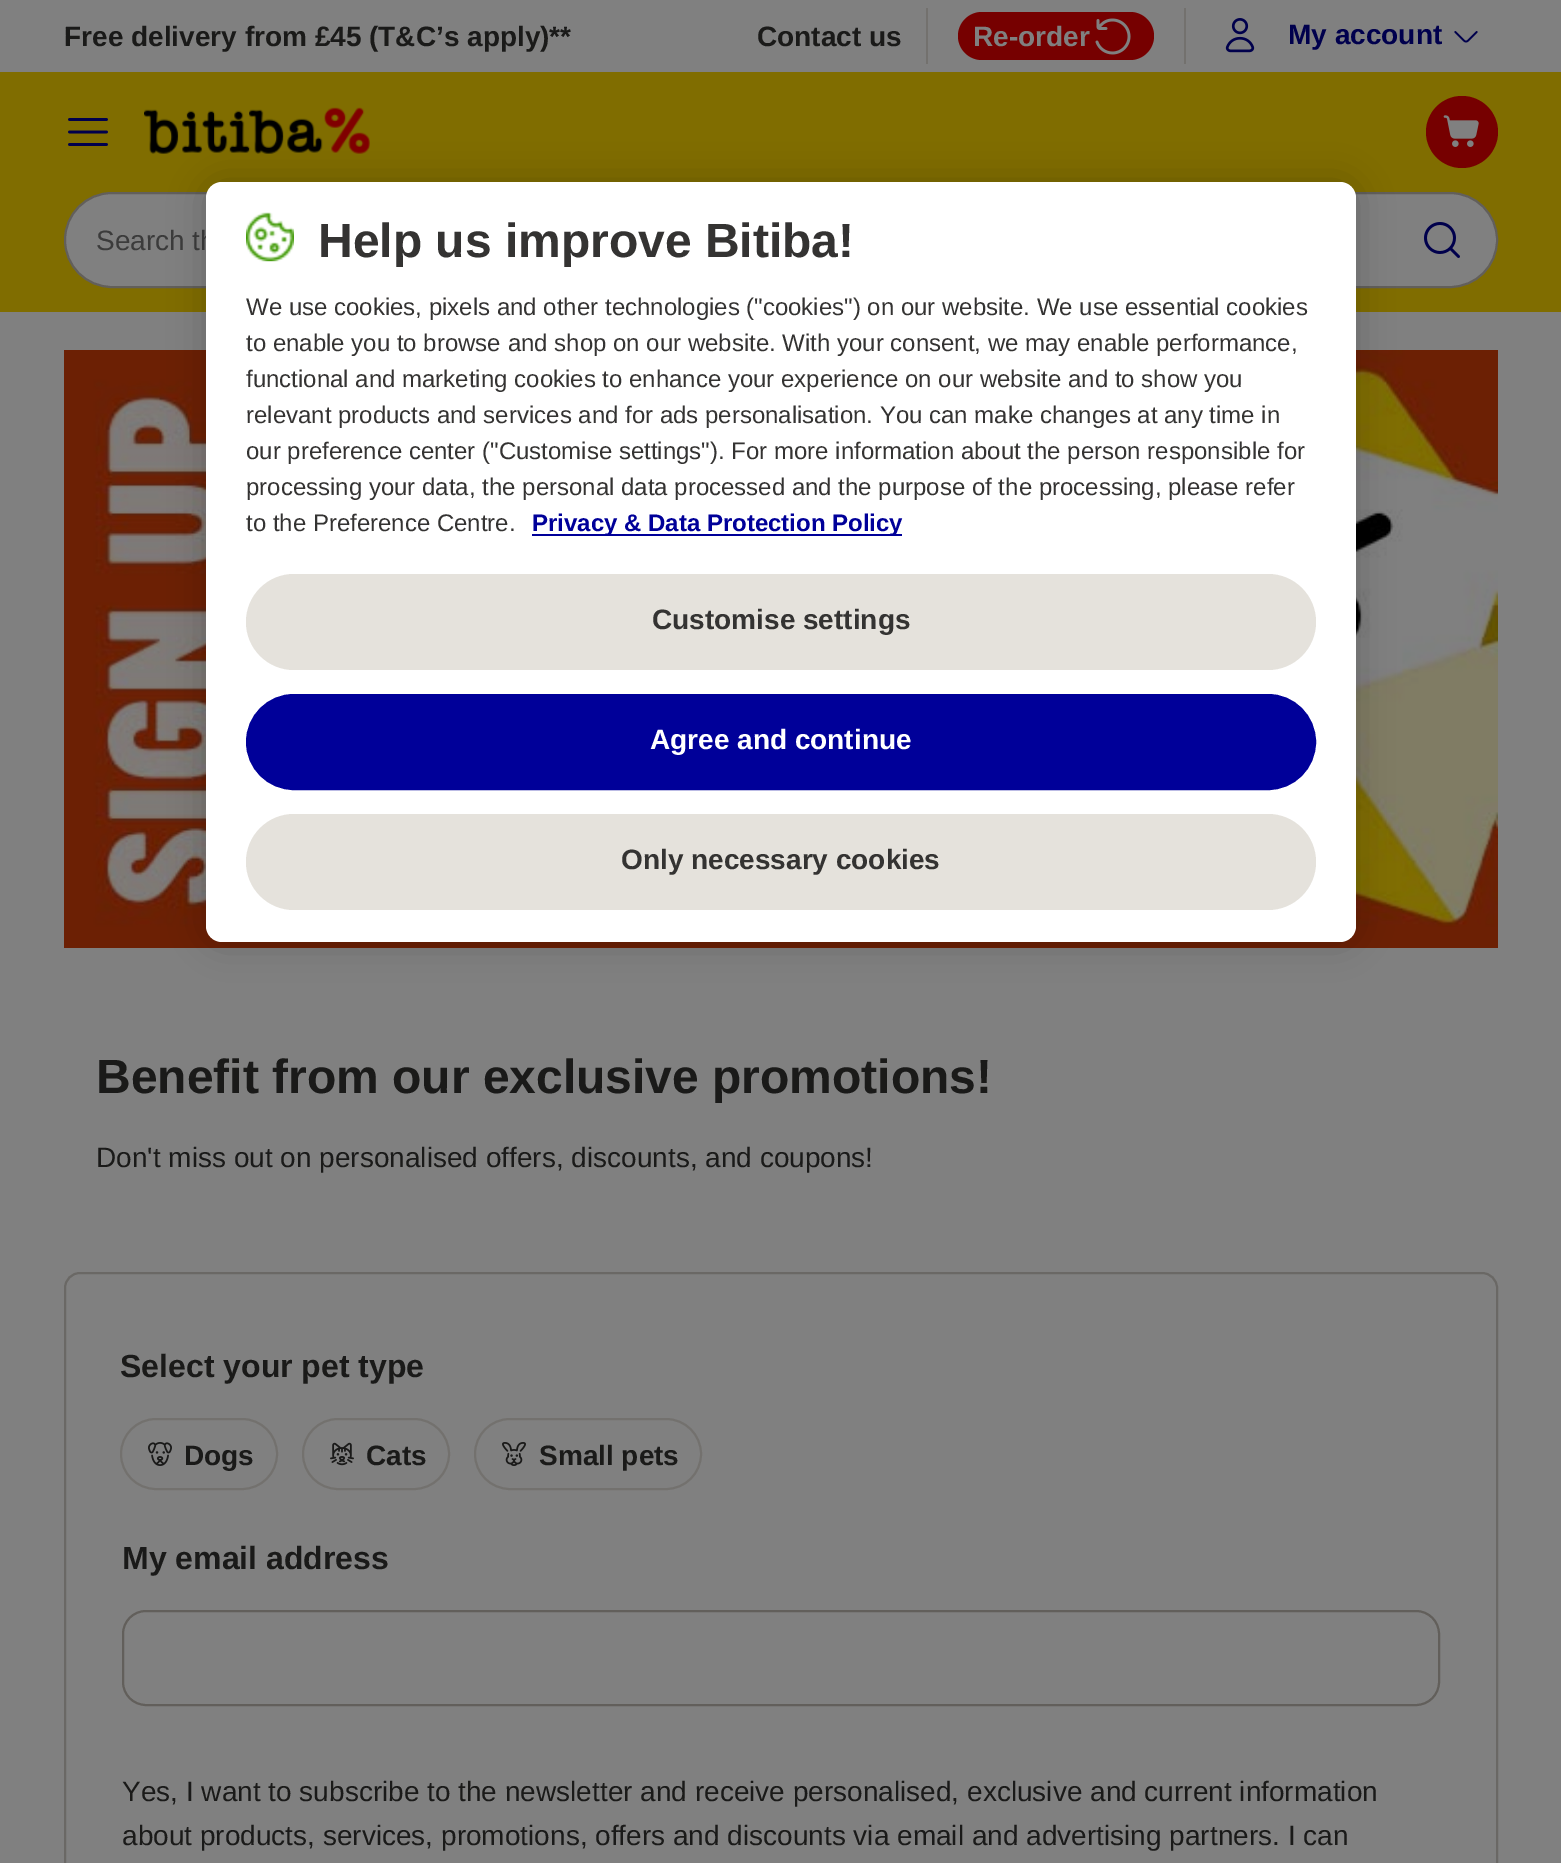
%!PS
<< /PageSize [1561 1863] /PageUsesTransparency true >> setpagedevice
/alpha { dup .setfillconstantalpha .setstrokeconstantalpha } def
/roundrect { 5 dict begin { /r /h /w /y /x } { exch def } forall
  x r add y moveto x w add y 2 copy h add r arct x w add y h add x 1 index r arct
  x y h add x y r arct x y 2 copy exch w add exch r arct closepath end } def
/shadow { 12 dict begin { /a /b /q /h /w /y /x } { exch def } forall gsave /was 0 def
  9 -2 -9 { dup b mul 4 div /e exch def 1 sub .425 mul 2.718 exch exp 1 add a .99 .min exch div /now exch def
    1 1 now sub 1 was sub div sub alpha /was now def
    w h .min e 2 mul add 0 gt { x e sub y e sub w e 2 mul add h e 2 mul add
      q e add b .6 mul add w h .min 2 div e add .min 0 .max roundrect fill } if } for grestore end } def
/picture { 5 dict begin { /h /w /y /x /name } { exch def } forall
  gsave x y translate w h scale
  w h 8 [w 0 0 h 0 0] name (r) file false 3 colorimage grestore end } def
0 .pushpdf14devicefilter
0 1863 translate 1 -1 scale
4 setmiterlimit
0.502 setgray
0 0 1561 1863 rectfill
0.502 0.427 0 setrgbcolor
0 72 1561 240 rectfill
/LiberationSans-Bold [28 0 0 -28 0 0] selectfont
0.102 0.102 0.098 setrgbcolor
64 46 moveto (Free delivery from £45 \(T&C’s apply\)**) show
757 46 moveto (Contact us) show
0.451 0.443 0.431 setrgbcolor
926 8 2 56 rectfill
0.463 0 0 setrgbcolor
958 12 196 48 24 roundrect fill
0.502 setgray
973 46 moveto (Re-order) show
(img1.rgb) 1095 18 36 37 picture
0.451 0.443 0.431 setrgbcolor
1184 8 2 56 rectfill
(img2.rgb) 1225 18 30 35 picture
0 0 0.302 setrgbcolor
1288 44 moveto (My account) show
(img3.rgb) 1454 31 24 12 picture
(img4.rgb) 68 118 40 28 picture
(img5.rgb) 144 107 226 47 picture
0.463 0 0 setrgbcolor
newpath 1462 132 36 0 360 arc closepath fill
(img6.rgb) 1443 115 36 32 picture
0.502 setgray
65 193 1432 94 47 roundrect gsave fill grestore
0.384 0.373 0.357 setrgbcolor
2 setlinewidth
stroke
/LiberationSans-Regular [28 0 0 -28 0 0] selectfont
0.231 setgray
96 250 moveto (Search th) show
(img7.rgb) 1424 222 36 36 picture
(img8.rgb) 64 350 1434 598 picture
/LiberationSans-Bold [48 0 0 -48 0 0] selectfont
0.102 0.102 0.098 setrgbcolor
96 1093 moveto (Benefit from our exclusive promotions!) show
/LiberationSans-Regular [28 0 0 -28 0 0] selectfont
96 1167 moveto (Don't miss out on personalised offers, discounts, and coupons!) show
0.416 0.408 0.396 setrgbcolor
65 1273 1432 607 15 roundrect stroke
/LiberationSans-Bold [32 0 0 -32 0 0] selectfont
0.102 0.102 0.098 setrgbcolor
120 1377 moveto (Select your pet type) show
0.451 0.443 0.431 setrgbcolor
121 1419 156 70 35 roundrect stroke
(img9.rgb) 148 1442 24 24 picture
/LiberationSans-Bold [28 0 0 -28 0 0] selectfont
0.102 0.102 0.098 setrgbcolor
184 1465 moveto (Dogs) show
0.451 0.443 0.431 setrgbcolor
303 1419 146 70 35 roundrect stroke
(img10.rgb) 330 1442 24 24 picture
0.102 0.102 0.098 setrgbcolor
366 1465 moveto (Cats) show
0.451 0.443 0.431 setrgbcolor
475 1419 226 70 35 roundrect stroke
(img11.rgb) 502 1442 24 24 picture
0.102 0.102 0.098 setrgbcolor
539 1465 moveto (Small pets) show
/LiberationSans-Bold [32 0 0 -32 0 0] selectfont
122 1569 moveto (My email address) show
0.384 0.373 0.357 setrgbcolor
123 1611 1316 94 23 roundrect stroke
/LiberationSans-Regular [28 0 0 -28 0 0] selectfont
0.102 0.102 0.098 setrgbcolor
122 1801 moveto (Yes, I want to subscribe to the newsletter and receive personalised, exclusive and current information) show
122 1845 moveto (about products, services, promotions, offers and discounts via email and advertising partners. I can) show
0 setgray
206 182 1150 760 16 18 0.2 shadow
1 setgray
206 182 1150 760 16 roundrect fill
(img12.rgb) 246 212 48 50 picture
/LiberationSans-Bold [48 0 0 -48 0 0] selectfont
0.204 0.2 0.196 setrgbcolor
318 257 moveto (Help us improve Bitiba!) show
/LiberationSans-Regular [24 0 0 -24 0 0] selectfont
246 315 moveto (We use cookies, pixels and other technologies \("cookies"\) on our website. We use essential cookies) show
246 351 moveto (to enable you to browse and shop on our website. With your consent, we may enable performance,) show
246 387 moveto (functional and marketing cookies to enhance your experience on our website and to show you) show
246 423 moveto (relevant products and services and for ads personalisation. You can make changes at any time in) show
246 459 moveto (our preference center \("Customise settings"\). For more information about the person responsible for) show
246 495 moveto (processing your data, the personal data processed and the purpose of the processing, please refer) show
246 531 moveto (to the Preference Centre.) show
0 0 0.6 setrgbcolor
532 534 370 2 rectfill
/LiberationSans-Bold [24 0 0 -24 0 0] selectfont
532 531 moveto (Privacy & Data Protection Policy) show
0.898 0.886 0.863 setrgbcolor
246 574 1070 96 48 roundrect fill
/LiberationSans-Bold [28 0 0 -28 0 0] selectfont
0.204 0.2 0.196 setrgbcolor
652 629 moveto (Customise settings) show
0 0 0.6 setrgbcolor
247 695 1068 94 47 roundrect gsave fill grestore
stroke
1 setgray
650 749 moveto (Agree and continue) show
0.898 0.886 0.863 setrgbcolor
246 814 1070 96 48 roundrect fill
0.204 0.2 0.196 setrgbcolor
621 869 moveto (Only necessary cookies) show
.poppdf14devicefilter showpage
